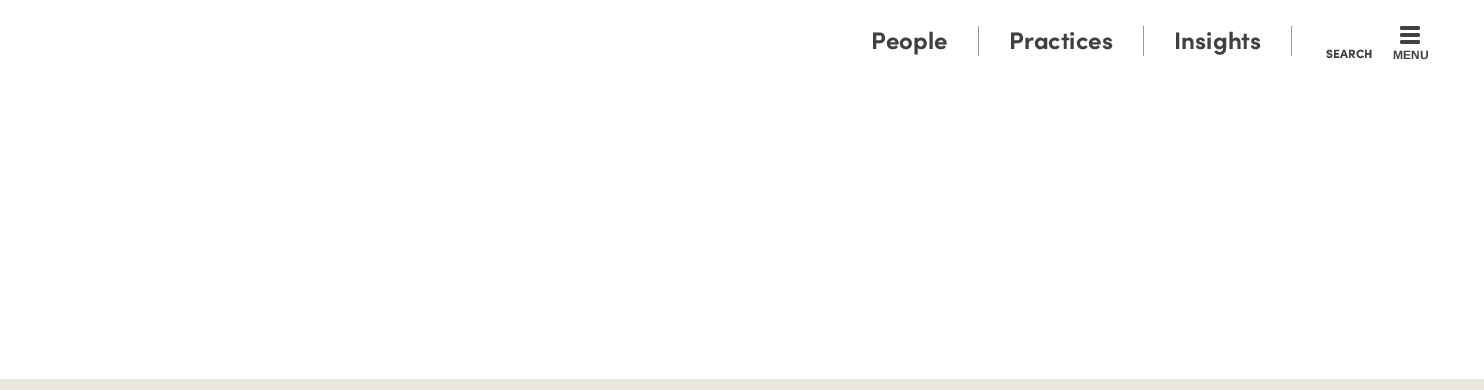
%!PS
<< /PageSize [1484 390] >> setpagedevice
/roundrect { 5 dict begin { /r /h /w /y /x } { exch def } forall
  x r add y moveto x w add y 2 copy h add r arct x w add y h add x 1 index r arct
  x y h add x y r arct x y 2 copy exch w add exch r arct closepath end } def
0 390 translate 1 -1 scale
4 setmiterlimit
1 setgray
0 0 1484 390 rectfill
/Sofia-Bold [24 0 0 -24 0 0] selectfont
0.251 setgray
871 49 moveto (People) show
0.592 setgray
978 26 1 30 rectfill
0.251 setgray
1009 49 moveto (Practices) show
0.592 setgray
1143 26 1 30 rectfill
0.251 setgray
1174 49 moveto (Insights) show
0.592 setgray
1291 26 1 30 rectfill
/Sofia-Black [12 0 0 -12 0 0] selectfont
0.251 setgray
1326 58 moveto (SEARCH) show
0.255 0.251 0.259 setrgbcolor
1400 26 20 4 2 roundrect fill
1400 33 20 4 2 roundrect fill
1400 40 20 4 2 roundrect fill
/LiberationSans-Bold [12 0 0 -12 0 0] selectfont
0.251 setgray
1393 59 moveto (MENU) show
0.918 0.906 0.875 setrgbcolor
0 379 1484 11 rectfill
showpage
